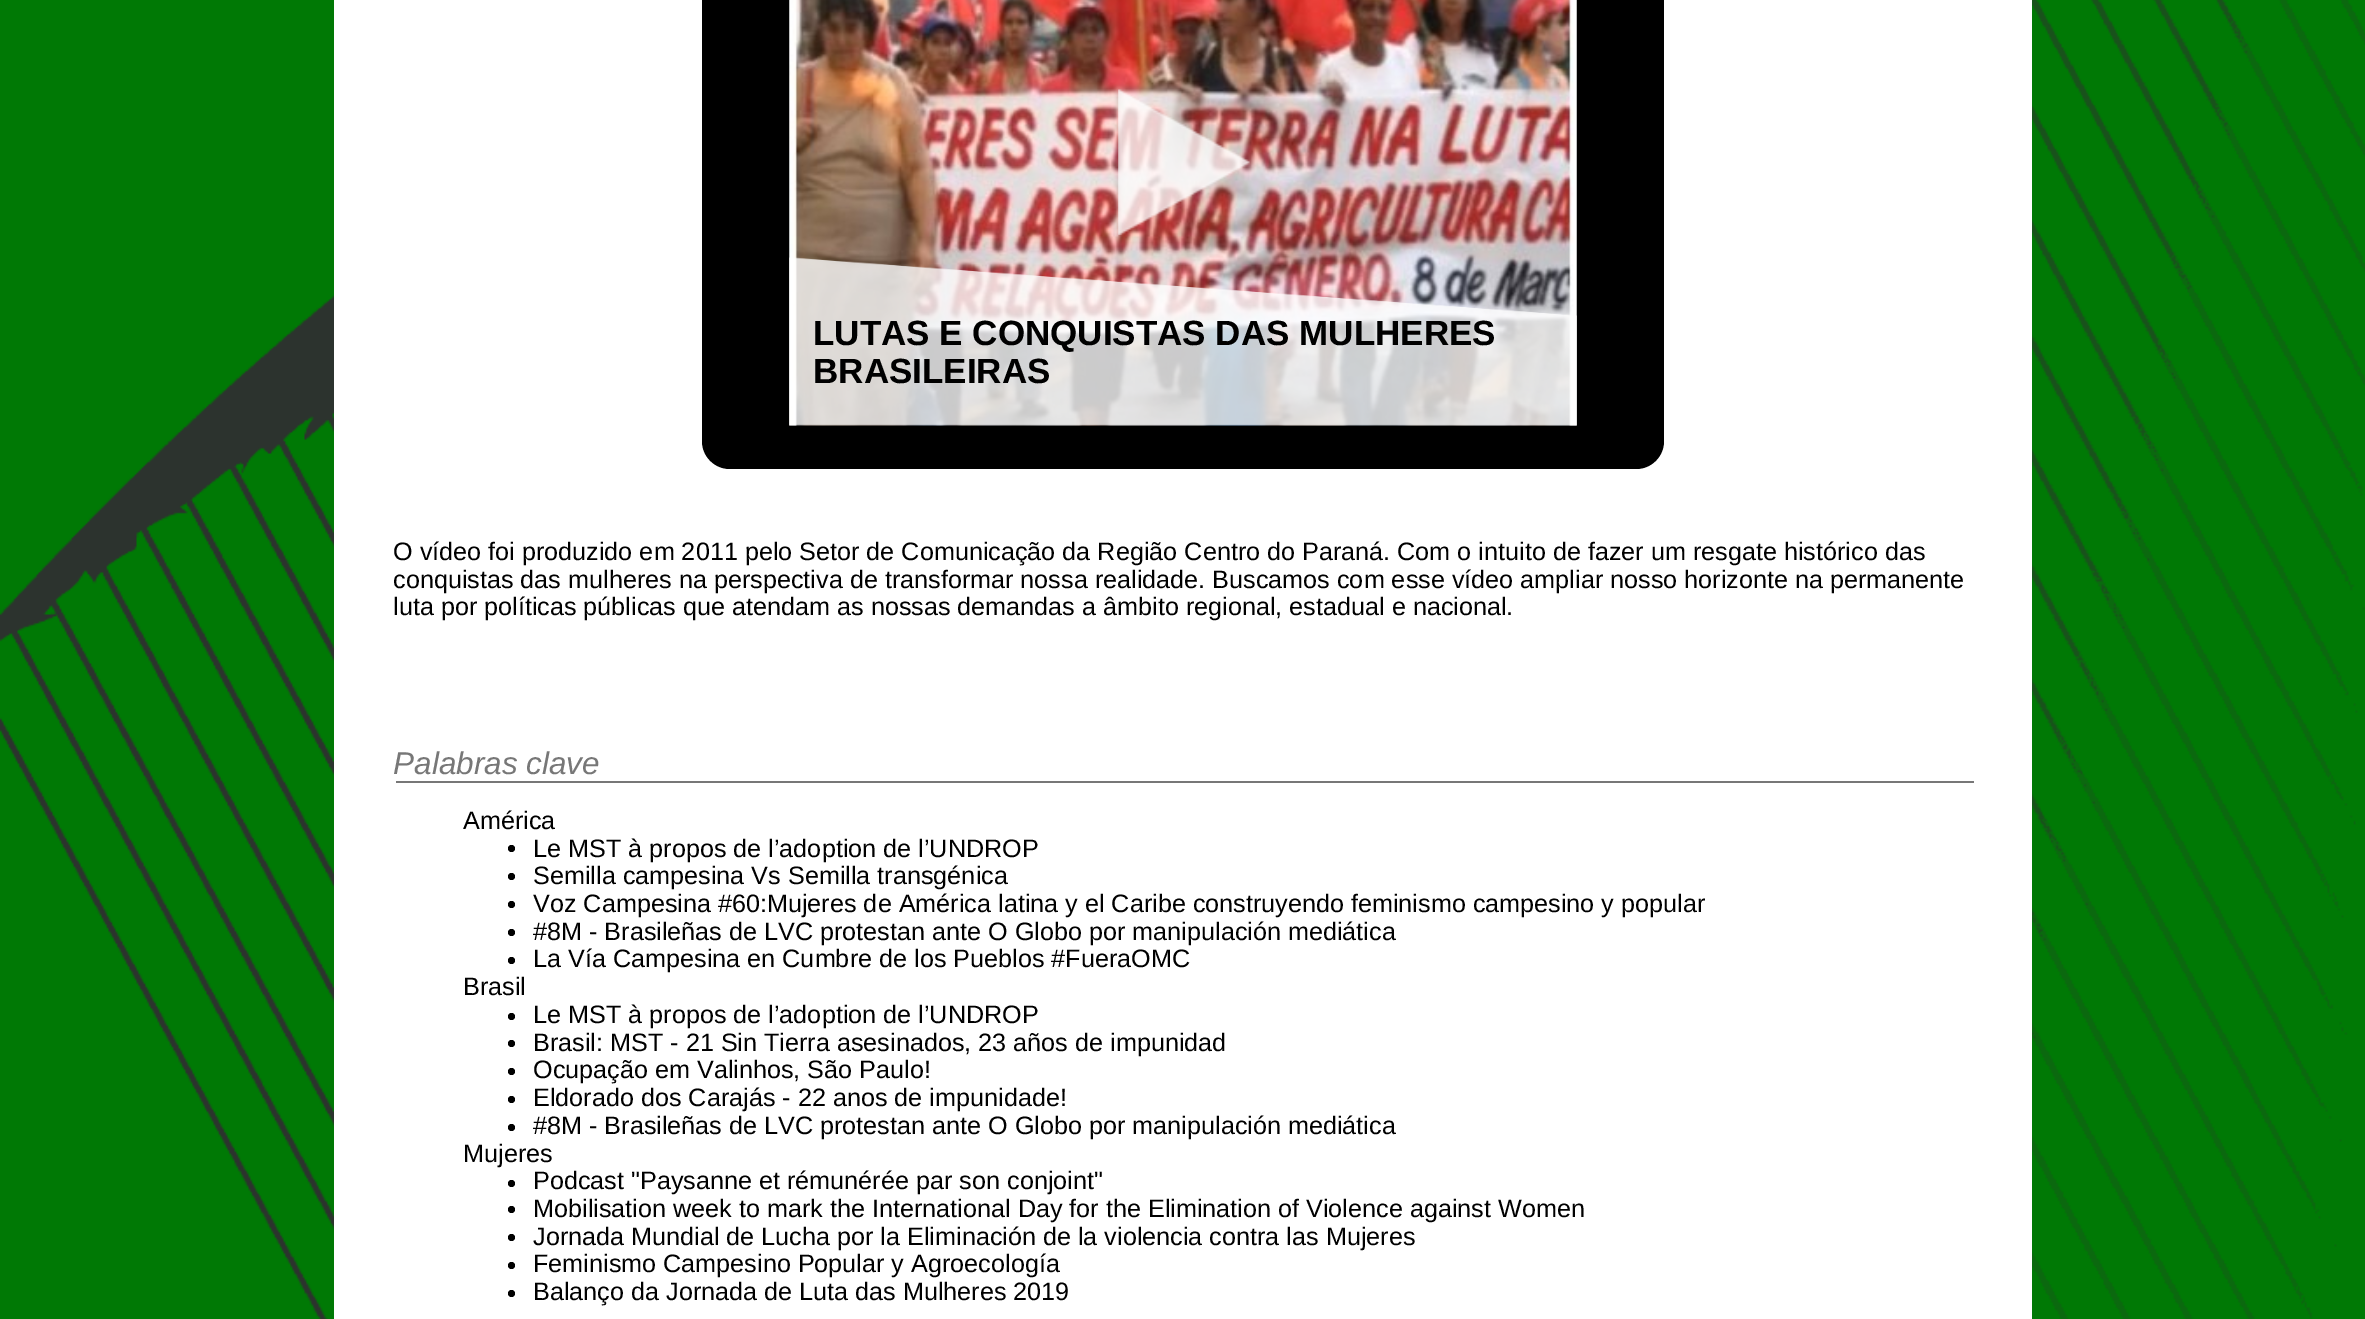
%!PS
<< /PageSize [2365 1319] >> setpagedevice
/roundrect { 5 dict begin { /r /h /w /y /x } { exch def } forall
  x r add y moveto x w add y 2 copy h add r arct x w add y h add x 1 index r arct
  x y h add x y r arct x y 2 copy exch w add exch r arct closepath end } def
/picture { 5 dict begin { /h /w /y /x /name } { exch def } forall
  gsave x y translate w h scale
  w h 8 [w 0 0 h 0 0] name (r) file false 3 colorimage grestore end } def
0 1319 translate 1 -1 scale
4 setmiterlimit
1 setgray
0 0 2365 1319 rectfill
(img1.rgb) 0 0 2365 1319 picture
334 0 1698 1319 rectfill
0 setgray
702 -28 962 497 28 roundrect fill
(img2.rgb) 789 0 788 426 picture
(img3.rgb) 1118 89 132 146 picture
(img4.rgb) 789 257 788 169 picture
/LiberationSans-Bold [35 0 0 -35 0 0] selectfont
813 345 moveto (LUTAS E CONQUISTAS DAS MULHERES) show
813 383 moveto (BRASILEIRAS) show
/LiberationSans-Regular [25.2 0 0 -25.2 0 0] selectfont
393 560 moveto (O vídeo foi produzido em 2011 pelo Setor de Comunicação da Região Centro do Paraná. Com o intuito de fazer um resgate histórico das) show
393 588 moveto (conquistas das mulheres na perspectiva de transformar nossa realidade. Buscamos com esse vídeo ampliar nosso horizonte na permanente) show
393 615 moveto (luta por políticas públicas que atendam as nossas demandas a âmbito regional, estadual e nacional.) show
/LiberationSans-Italic [31.5 0 0 -31.5 0 0] selectfont
0.467 setgray
393 774 moveto (Palabras clave) show
396 781 1578 2 rectfill
/LiberationSans-Regular [25.2 0 0 -25.2 0 0] selectfont
0 setgray
463 829 moveto (América) show
newpath 511.5 848.5 3.5 0 360 arc closepath fill
533 857 moveto (Le MST à propos de l’adoption de l’UNDROP) show
newpath 511.5 876.5 3.5 0 360 arc closepath fill
533 884 moveto (Semilla campesina Vs Semilla transgénica) show
newpath 511.5 904.5 3.5 0 360 arc closepath fill
533 912 moveto (Voz Campesina #60:Mujeres de América latina y el Caribe construyendo feminismo campesino y popular) show
newpath 511.5 932.5 3.5 0 360 arc closepath fill
533 940 moveto (#8M - Brasileñas de LVC protestan ante O Globo por manipulación mediática) show
newpath 511.5 960.5 3.5 0 360 arc closepath fill
533 967 moveto (La Vía Campesina en Cumbre de los Pueblos #FueraOMC) show
463 995 moveto (Brasil) show
newpath 511.5 1016.5 3.5 0 360 arc closepath fill
533 1023 moveto (Le MST à propos de l’adoption de l’UNDROP) show
newpath 511.5 1043.5 3.5 0 360 arc closepath fill
533 1051 moveto (Brasil: MST - 21 Sin Tierra asesinados, 23 años de impunidad) show
newpath 511.5 1071.5 3.5 0 360 arc closepath fill
533 1078 moveto (Ocupação em Valinhos, São Paulo!) show
newpath 511.5 1099.5 3.5 0 360 arc closepath fill
533 1106 moveto (Eldorado dos Carajás - 22 anos de impunidade!) show
newpath 511.5 1127.5 3.5 0 360 arc closepath fill
533 1134 moveto (#8M - Brasileñas de LVC protestan ante O Globo por manipulación mediática) show
463 1162 moveto (Mujeres) show
newpath 511.5 1183.5 3.5 0 360 arc closepath fill
533 1189 moveto (Podcast "Paysanne et rémunérée par son conjoint") show
newpath 511.5 1209.5 3.5 0 360 arc closepath fill
533 1217 moveto (Mobilisation week to mark the International Day for the Elimination of Violence against Women) show
newpath 511.5 1237.5 3.5 0 360 arc closepath fill
533 1245 moveto (Jornada Mundial de Lucha por la Eliminación de la violencia contra las Mujeres) show
newpath 511.5 1265.5 3.5 0 360 arc closepath fill
533 1272 moveto (Feminismo Campesino Popular y Agroecología) show
newpath 511.5 1293.5 3.5 0 360 arc closepath fill
533 1300 moveto (Balanço da Jornada de Luta das Mulheres 2019) show
showpage
